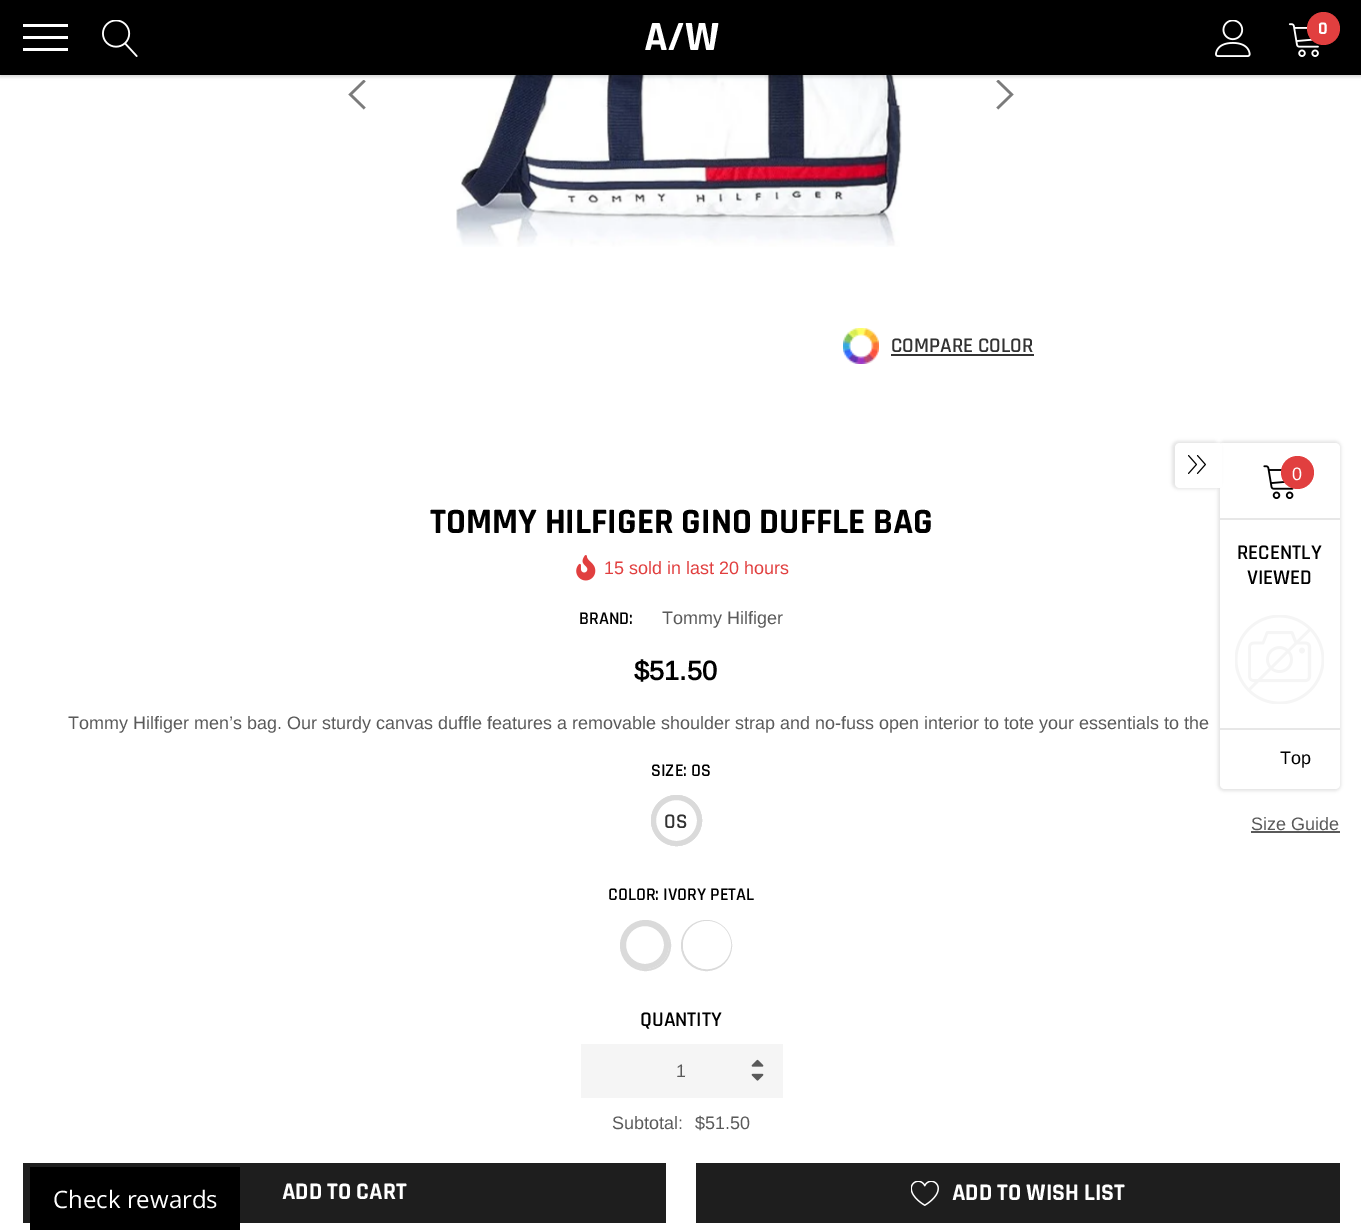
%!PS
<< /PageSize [1361 1230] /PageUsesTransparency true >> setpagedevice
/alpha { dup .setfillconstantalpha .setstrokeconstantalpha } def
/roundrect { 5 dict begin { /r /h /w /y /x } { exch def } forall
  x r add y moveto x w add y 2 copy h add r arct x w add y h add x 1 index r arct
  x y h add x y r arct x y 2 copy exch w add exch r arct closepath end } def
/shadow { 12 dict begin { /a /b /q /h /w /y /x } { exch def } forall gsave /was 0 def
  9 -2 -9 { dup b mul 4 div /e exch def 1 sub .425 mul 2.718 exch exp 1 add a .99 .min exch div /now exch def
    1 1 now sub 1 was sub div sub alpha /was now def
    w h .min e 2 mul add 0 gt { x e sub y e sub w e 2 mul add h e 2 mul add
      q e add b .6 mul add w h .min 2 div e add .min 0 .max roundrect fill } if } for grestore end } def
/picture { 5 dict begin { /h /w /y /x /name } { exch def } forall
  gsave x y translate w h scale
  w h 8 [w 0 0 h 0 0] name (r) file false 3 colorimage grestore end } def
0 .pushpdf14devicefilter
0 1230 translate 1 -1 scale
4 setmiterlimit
1 setgray
0 0 1361 1230 rectfill
(img4.rgb) 348 80 18 30 picture
(img5.rgb) 456 75 446 172 picture
(img6.rgb) 996 80 18 30 picture
0 setgray
0 2 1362 75 0 1.5 0.15 shadow
0 0 1361 75 rectfill
1 setgray
23 36 45 3 rectfill
23 24 45 3 rectfill
23 48 45 3 rectfill
(img1.rgb) 102 20 36 37 picture
/Rajdhani-Bold [42 0 0 -42 0 0] selectfont
644 50 moveto (A/W) show
(img2.rgb) 1215 20 36 37 picture
(img3.rgb) 1288 23 31 34 picture
0.882 0.247 0.247 setrgbcolor
newpath 1323.5 28.5 16.5 0 360 arc closepath fill
/Rajdhani-Bold [18 0 0 -18 0 0] selectfont
1 setgray
1318 34 moveto (0) show
(img7.rgb) 843 328 36 36 picture
/Rajdhani-SemiBold [21 0 0 -21 0 0] selectfont
0.196 setgray
891 352 moveto (COMPARE COLOR) show
0.2 setgray
891 354 143 2 rectfill
/Rajdhani-Bold [36 0 0 -36 0 0] selectfont
0 setgray
430 533 moveto (TOMMY HILFIGER GINO DUFFLE BAG) show
(img8.rgb) 576 555 20 26 picture
/Arimo-Regular [18 0 0 -18 0 0] selectfont
0.882 0.247 0.247 setrgbcolor
604 574 moveto (15 sold in last 20 hours) show
/Rajdhani-SemiBold [18 0 0 -18 0 0] selectfont
0 setgray
579 624 moveto (BRAND:) show
/Arimo-Regular [18 0 0 -18 0 0] selectfont
0.353 setgray
662 624 moveto (Tommy Hilfiger) show
/Arimo-Bold [27 0 0 -27 0 0] selectfont
0 setgray
634 680 moveto ($51.50) show
/Arimo-Regular [18 0 0 -18 0 0] selectfont
0.353 setgray
68 729 moveto (Tommy Hilfiger men’s bag. Our sturdy canvas duffle features a removable shoulder strap and no-fuss open interior to tote your essentials to the) show
/Rajdhani-SemiBold [18 0 0 -18 0 0] selectfont
0 setgray
651 776 moveto (SIZE: OS) show
0.855 setgray
2 setlinewidth
newpath 676.5 820.5 24.5 0 360 arc closepath stroke
/Rajdhani-SemiBold [21 0 0 -21 0 0] selectfont
0.196 setgray
664 828 moveto (OS) show
0.855 setgray
5 setlinewidth
newpath 676.5 820.5 23 0 360 arc closepath stroke
/Arimo-Regular [18 0 0 -18 0 0] selectfont
0.353 setgray
1251 830 moveto (Size Guide) show
1251 831 89 2 rectfill
/Rajdhani-SemiBold [18 0 0 -18 0 0] selectfont
0 setgray
608 900 moveto (COLOR: IVORY PETAL) show
0.855 setgray
2 setlinewidth
newpath 645.5 945.5 24.5 0 360 arc closepath stroke
5 setlinewidth
newpath 645 945 21.5 0 360 arc closepath stroke
2 setlinewidth
newpath 706.5 945.5 24.5 0 360 arc closepath stroke
1 setgray
5 setlinewidth
newpath 707 945 21.5 0 360 arc closepath stroke
/Rajdhani-SemiBold [21 0 0 -21 0 0] selectfont
0 setgray
640 1026 moveto (QUANTITY) show
0.961 setgray
581 1044 202 54 rectfill
(img9.rgb) 751 1059 13 8 picture
/Arimo-Regular [18 0 0 -18 0 0] selectfont
0.353 setgray
676 1077 moveto (1) show
(img10.rgb) 751 1073 13 8 picture
612 1129 moveto (Subtotal:) show
695 1129 moveto ($51.50) show
0.118 setgray
23 1163 643 60 rectfill
/Rajdhani-Bold [24 0 0 -24 0 0] selectfont
1 setgray
282 1199 moveto (ADD TO CART) show
0.118 setgray
696 1163 644 60 rectfill
(img11.rgb) 911 1181 28 25 picture
1 setgray
952 1200 moveto (ADD TO WISH LIST) show
0 setgray
1218 441 123 350 6 1.5 0.1 shadow
1 setgray
newpath 1220 443 moveto 1335 443 lineto 1338 443 1340 445 1340 448 curveto 1340 784 lineto 1340 787 1338 789 1335 789 curveto 1225 789 lineto 1222 789 1220 787 1220 784 curveto closepath fill
0 setgray
1172 441 48 48 6 1.5 0.1 shadow
1 setgray
newpath 1180 443 moveto 1220 443 lineto 1220 488 lineto 1180 488 lineto 1177 488 1175 486 1175 483 curveto 1175 448 lineto 1175 445 1177 443 1180 443 curveto closepath fill
(img12.rgb) 1188 455 18 19 picture
1220 444 2 43 rectfill
(img13.rgb) 1263 465 31 34 picture
0.882 0.247 0.247 setrgbcolor
newpath 1297.5 472.5 16.5 0 360 arc closepath fill
/Arimo-Regular [18 0 0 -18 0 0] selectfont
1 setgray
1292 480 moveto (0) show
0.906 setgray
1220 518 120 2 rectfill
1220 728 120 2 rectfill
/Rajdhani-SemiBold [21 0 0 -21 0 0] selectfont
0 setgray
1237 559 moveto (RECENTLY) show
1247 584 moveto (VIEWED) show
(img14.rgb) 1235 615 89 89 picture
/Arimo-Regular [18 0 0 -18 0 0] selectfont
1280 764 moveto (Top) show
30 1167 210 63 rectfill
/OpenSans-Regular [24 0 0 -24 0 0] selectfont
1 setgray
53 1208 moveto (Check rewards) show
.poppdf14devicefilter showpage
